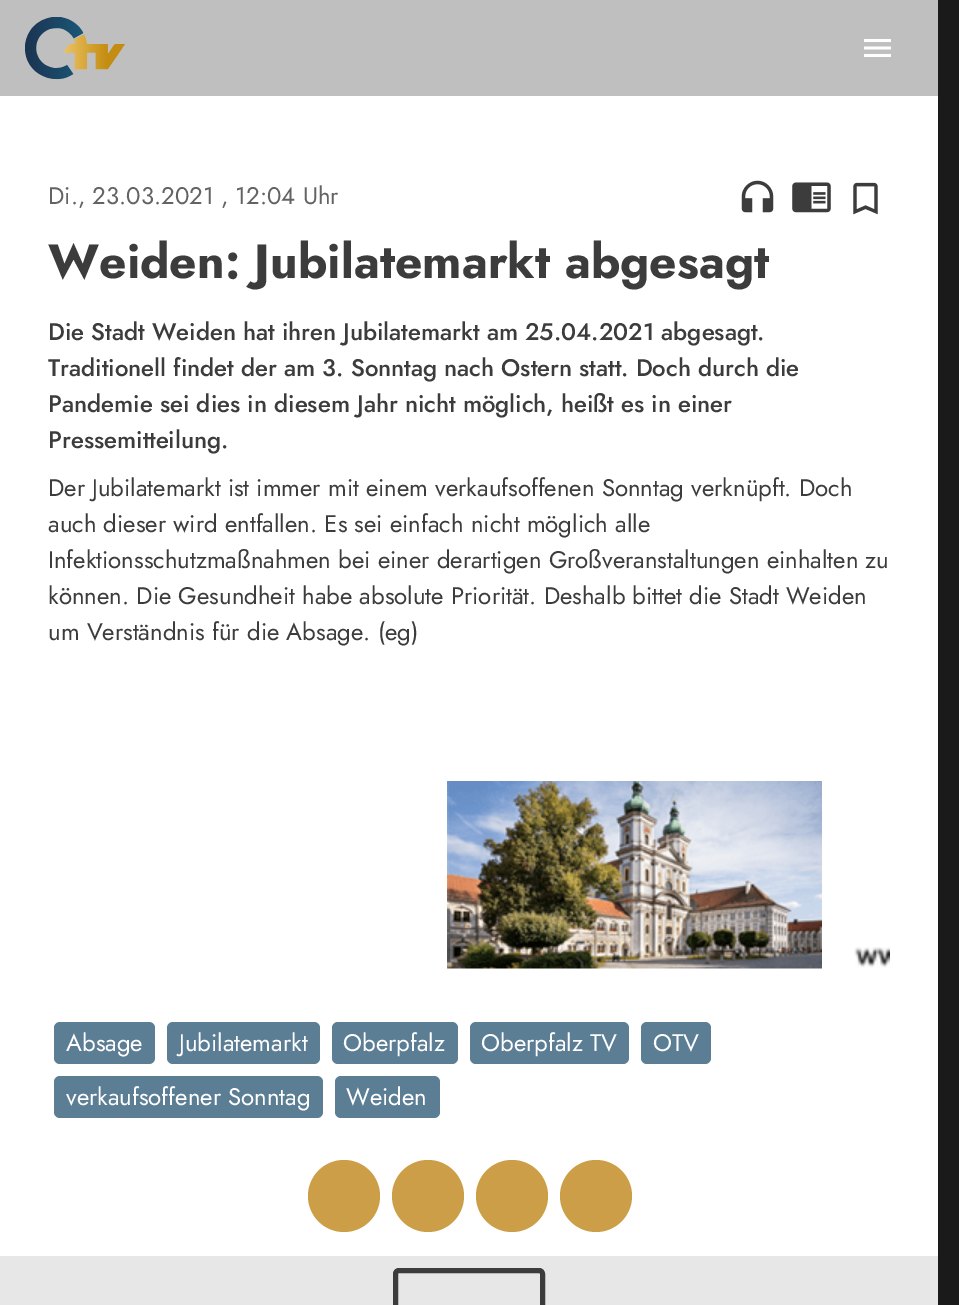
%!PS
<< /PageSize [959 1305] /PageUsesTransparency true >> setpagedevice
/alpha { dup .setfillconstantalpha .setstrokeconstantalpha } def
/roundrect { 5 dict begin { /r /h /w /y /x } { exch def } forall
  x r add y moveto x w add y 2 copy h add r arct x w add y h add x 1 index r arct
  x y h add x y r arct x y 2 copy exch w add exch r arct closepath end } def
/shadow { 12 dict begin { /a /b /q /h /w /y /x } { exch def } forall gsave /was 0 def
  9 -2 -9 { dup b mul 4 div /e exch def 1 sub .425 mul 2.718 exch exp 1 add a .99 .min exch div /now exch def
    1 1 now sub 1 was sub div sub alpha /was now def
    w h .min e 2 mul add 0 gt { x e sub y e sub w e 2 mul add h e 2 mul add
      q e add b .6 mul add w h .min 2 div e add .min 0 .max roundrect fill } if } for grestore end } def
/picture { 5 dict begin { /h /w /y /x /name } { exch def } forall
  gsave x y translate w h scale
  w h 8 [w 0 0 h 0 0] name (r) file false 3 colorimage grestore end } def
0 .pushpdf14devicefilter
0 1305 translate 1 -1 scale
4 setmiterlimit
0.102 setgray
0 0 959 1305 rectfill
1 setgray
0 96 938 1160 rectfill
(img3.rgb) 741 180 33 33 picture
(img4.rgb) 792 182 39 31 picture
(img5.rgb) 853 182 25 33 picture
gsave
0 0 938 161 rectclip
newpath 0 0 moveto 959 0 lineto 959 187 lineto 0 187 lineto closepath -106 -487 moveto 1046 -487 lineto 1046 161 lineto -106 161 lineto closepath eoclip newpath
0 setgray
-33 -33 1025 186 0 11 0.4 shadow
grestore
0.749 setgray
0 0 938 96 rectfill
(img1.rgb) 25 17 100 63 picture
(img2.rgb) 864 39 27 18 picture
0.906 setgray
0 1256 938 49 rectfill
/Jost-Regular [24 0 0 -24 0 0] selectfont
0.388 setgray
48 204 moveto (Di., 23.03.2021 , 12:04 Uhr) show
/Jost-Bold [48 0 0 -48 0 0] selectfont
0.235 setgray
48 278 moveto (Weiden: Jubilatemarkt abgesagt) show
/Jost-Medium [24 0 0 -24 0 0] selectfont
48 340 moveto (Die Stadt Weiden hat ihren Jubilatemarkt am 25.04.2021 abgesagt.) show
48 376 moveto (Traditionell findet der am 3. Sonntag nach Ostern statt. Doch durch die) show
48 412 moveto (Pandemie sei dies in diesem Jahr nicht möglich, heißt es in einer) show
48 448 moveto (Pressemitteilung.) show
/Jost-Regular [24 0 0 -24 0 0] selectfont
48 496 moveto (Der Jubilatemarkt ist immer mit einem verkaufsoffenen Sonntag verknüpft. Doch) show
48 532 moveto (auch dieser wird entfallen. Es sei einfach nicht möglich alle) show
48 568 moveto (Infektionsschutzmaßnahmen bei einer derartigen Großveranstaltungen einhalten zu) show
48 604 moveto (können. Die Gesundheit habe absolute Priorität. Deshalb bittet die Stadt Weiden) show
48 640 moveto (um Verständnis für die Absage. \(eg\)) show
(img6.rgb) 447 781 375 188 picture
(img7.rgb) 854 947 36 21 picture
0.361 0.494 0.584 setrgbcolor
54 1022 101 42 6 roundrect fill
1 setgray
66 1051 moveto (Absage) show
0.361 0.494 0.584 setrgbcolor
167 1022 153 42 6 roundrect fill
1 setgray
179 1051 moveto (Jubilatemarkt) show
0.361 0.494 0.584 setrgbcolor
332 1022 126 42 6 roundrect fill
1 setgray
343 1051 moveto (Oberpfalz) show
0.361 0.494 0.584 setrgbcolor
470 1022 159 42 6 roundrect fill
1 setgray
481 1051 moveto (Oberpfalz TV) show
0.361 0.494 0.584 setrgbcolor
641 1022 70 42 6 roundrect fill
1 setgray
653 1051 moveto (OTV) show
0.361 0.494 0.584 setrgbcolor
54 1076 269 42 6 roundrect fill
1 setgray
66 1105 moveto (verkaufsoffener Sonntag) show
0.361 0.494 0.584 setrgbcolor
335 1076 105 42 6 roundrect fill
1 setgray
346 1105 moveto (Weiden) show
0.8 0.62 0.282 setrgbcolor
newpath 344 1196 36 0 360 arc closepath fill
newpath 428 1196 36 0 360 arc closepath fill
newpath 512 1196 36 0 360 arc closepath fill
newpath 596 1196 36 0 360 arc closepath fill
0.235 setgray
5 setlinewidth
395.5 1270.5 147 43 3.5 roundrect stroke
.poppdf14devicefilter showpage
